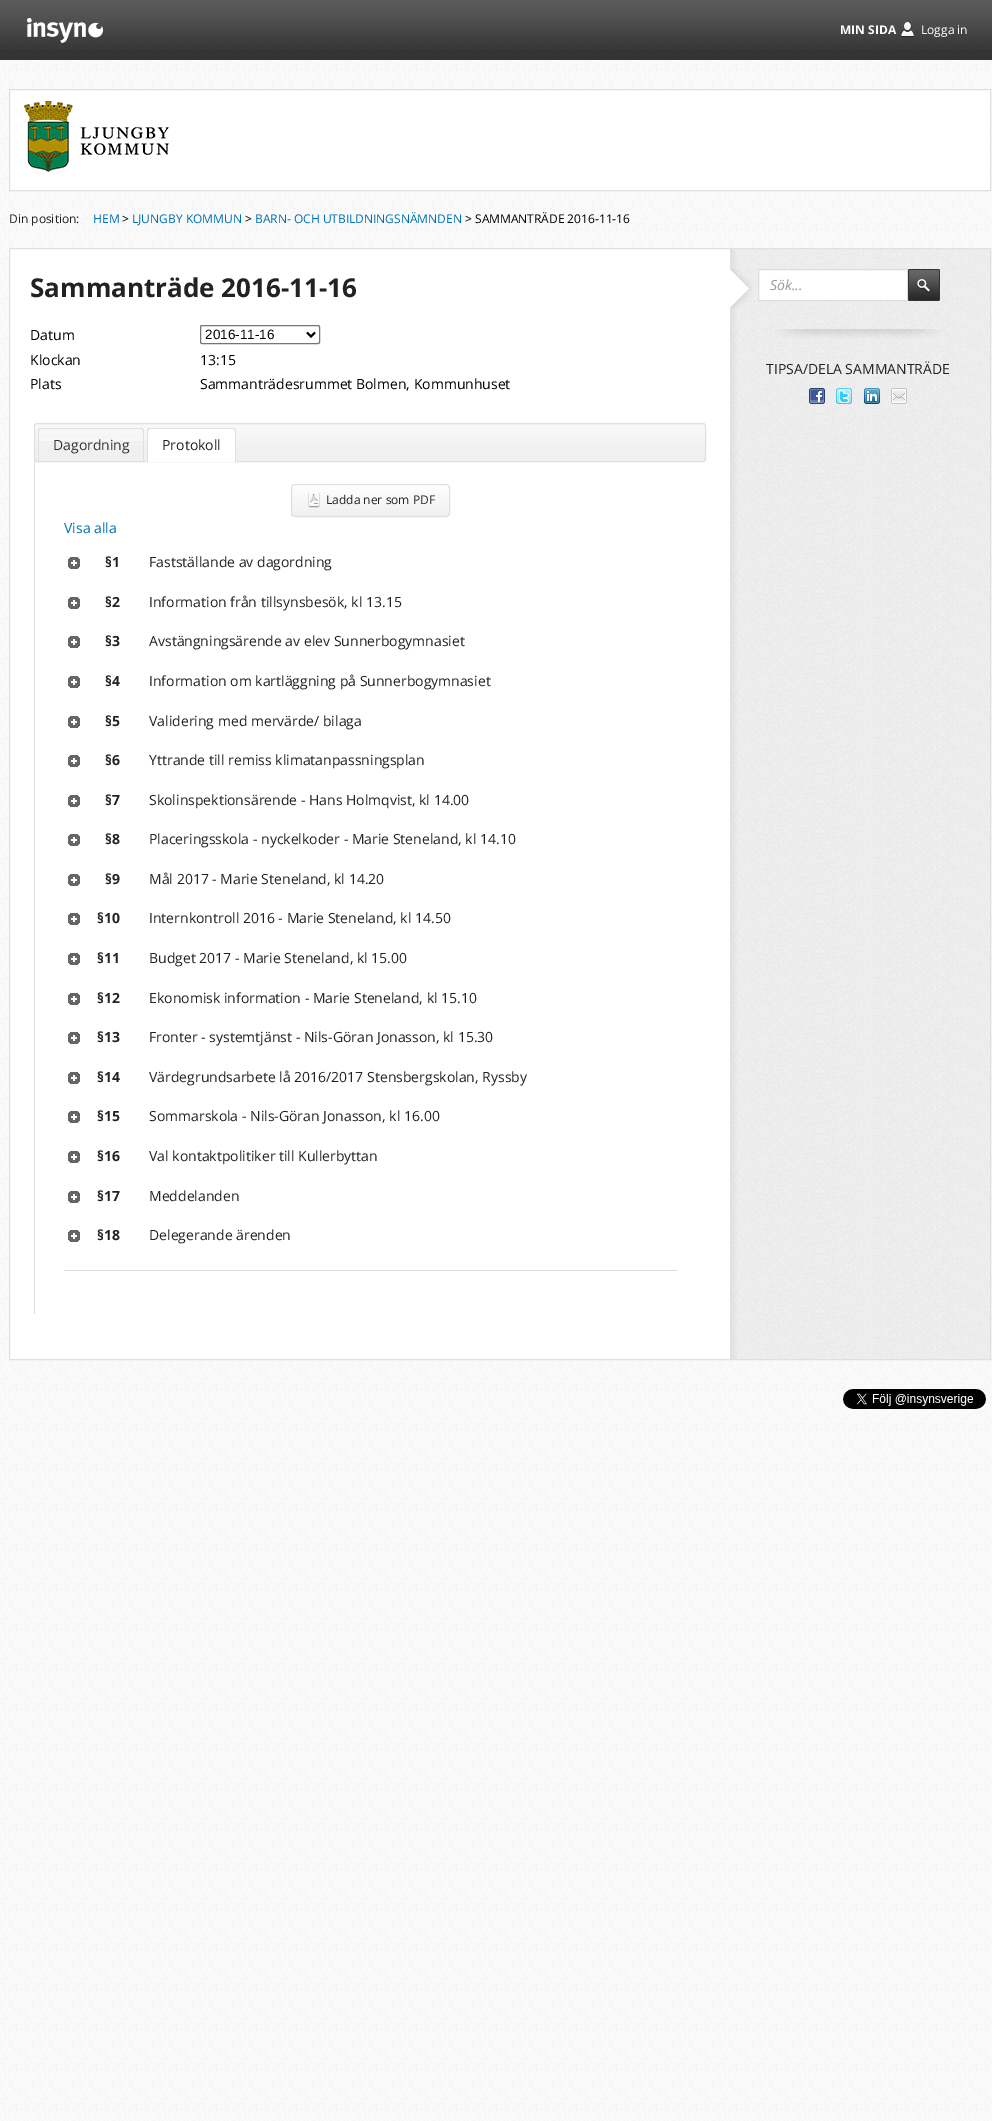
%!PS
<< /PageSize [992 2121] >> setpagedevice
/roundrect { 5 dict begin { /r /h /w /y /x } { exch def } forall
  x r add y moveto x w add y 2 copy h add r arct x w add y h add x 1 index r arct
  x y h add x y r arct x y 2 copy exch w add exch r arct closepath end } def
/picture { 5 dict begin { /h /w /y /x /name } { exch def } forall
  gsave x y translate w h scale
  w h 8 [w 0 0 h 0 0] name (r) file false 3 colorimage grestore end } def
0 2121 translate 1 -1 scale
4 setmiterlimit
1 setgray
0 0 992 2121 rectfill
(img1.rgb) 0 60 992 2061 picture
0.2 setgray
0 50 992 10 rectfill
(img2.rgb) 0 0 992 50 picture
(img3.rgb) 27 18 76 25 picture
/OpenSans-Bold [12 0 0 -12 0 0] selectfont
1 setgray
840 34 moveto (MIN SIDA) show
(img4.rgb) 901 22 13 16 picture
/OpenSans-Regular [12 0 0 -12 0 0] selectfont
921 34 moveto (Logga in) show
newpath 9.5 89.5 moveto 990.5 89.5 lineto 990.5 190.5 lineto 9.5 190.5 lineto closepath gsave fill grestore
0.878 setgray
stroke
(img5.rgb) 24 101 145 71 picture
0.133 setgray
9 223 moveto (Din position:) show
0 0.435 0.702 setrgbcolor
93 223 moveto (HEM) show
0 setgray
122 223 moveto (>) show
0 0.435 0.702 setrgbcolor
132 223 moveto (LJUNGBY KOMMUN) show
0 setgray
245 223 moveto (>) show
0 0.435 0.702 setrgbcolor
255 223 moveto (BARN- OCH UTBILDNINGSNÄMNDEN) show
0 setgray
465 223 moveto (> SAMMANTRÄDE 2016-11-16) show
1 setgray
10 249 720 1110 rectfill
(img6.rgb) 730 249 260 1110 picture
0.878 setgray
9.5 248.5 981 1111 rectstroke
/OpenSans-Bold [26 0 0 -26 0 0] selectfont
0.133 setgray
30 297 moveto (Sammanträde 2016-11-16) show
/OpenSans-Regular [14 0 0 -14 0 0] selectfont
0 setgray
30 340 moveto (Datum) show
0.463 setgray
200.5 325.5 119 18 1.5 roundrect stroke
0 setgray
2 setlinewidth
newpath 307 332.5 moveto 311 336.5 lineto 315 332.5 lineto stroke
/LiberationSans-Regular [13.5 0 0 -13.5 0 0] selectfont
205 339 moveto (2016-11-16) show
/OpenSans-Regular [14 0 0 -14 0 0] selectfont
30 365 moveto (Klockan) show
200 365 moveto (13:15) show
30 389 moveto (Plats) show
200 389 moveto (Sammanträdesrummet Bolmen, Kommunhuset) show
(img7.rgb) 34 423 672 39 picture
0.878 setgray
1 setlinewidth
34.5 423.5 671 38 2.5 roundrect stroke
0.941 setgray
39 441 104 2 rectfill
0.969 setgray
38 438 106 3 rectfill
0.878 setgray
newpath 41 428 moveto 141 428 lineto 143 428 144 429 144 431 curveto 144 461 lineto 38 461 lineto 38 431 lineto 38 429 39 428 41 428 curveto closepath 41 429 moveto 141 429 lineto 142 429 143 430 143 431 curveto 143 461 lineto 39 461 lineto 39 431 lineto 39 430 40 429 41 429 curveto closepath eofill
0.2 setgray
53 450 moveto (Dagordning) show
1 setgray
newpath 150 428 moveto 233 428 lineto 234.5 428 236 429.5 236 431 curveto 236 462 lineto 147 462 lineto 147 431 lineto 147 429.5 148.5 428 150 428 curveto closepath fill
0.878 setgray
newpath 150 428 moveto 233 428 lineto 235 428 236 429 236 431 curveto 236 462 lineto 147 462 lineto 147 431 lineto 147 429 148 428 150 428 curveto closepath 150 429 moveto 233 429 lineto 234 429 235 430 235 431 curveto 235 462 lineto 148 462 lineto 148 431 lineto 148 430 149 429 150 429 curveto closepath eofill
0.133 setgray
162 450 moveto (Protokoll) show
0.878 setgray
34 460 1 854 rectfill
gsave
291 484 159 33 4 roundrect clip newpath
gsave newpath 291 485 moveto 450 485 lineto 450 516 lineto 291 516 lineto closepath clip newpath
<< /ShadingType 2 /ColorSpace /DeviceRGB /Coords [371 485 371 516] /Extend [true true] /Function << /FunctionType 2 /Domain [0 1] /C0 [1 1 1] /C1 [0.941 0.941 0.941] /N 1 >> >> shfill grestore
grestore
291.5 484.5 158 32 3.5 roundrect stroke
(img8.rgb) 308 492 12 16 picture
/OpenSans-Regular [12 0 0 -12 0 0] selectfont
0.133 setgray
326 504 moveto (Ladda ner som PDF) show
/OpenSans-Regular [14 0 0 -14 0 0] selectfont
0 0.435 0.702 setrgbcolor
64 533 moveto (Visa alla) show
(img9.rgb) 68 557 12 12 picture
/OpenSans-Bold [14 0 0 -14 0 0] selectfont
0.133 setgray
105 567 moveto (§1) show
/OpenSans-Regular [14 0 0 -14 0 0] selectfont
149 567 moveto (Fastställande av dagordning) show
(img9.rgb) 68 597 12 12 picture
/OpenSans-Bold [14 0 0 -14 0 0] selectfont
105 607 moveto (§2) show
/OpenSans-Regular [14 0 0 -14 0 0] selectfont
149 607 moveto (Information från tillsynsbesök, kl 13.15) show
(img9.rgb) 68 636 12 12 picture
/OpenSans-Bold [14 0 0 -14 0 0] selectfont
105 646 moveto (§3) show
/OpenSans-Regular [14 0 0 -14 0 0] selectfont
149 646 moveto (Avstängningsärende av elev Sunnerbogymnasiet) show
(img9.rgb) 68 676 12 12 picture
/OpenSans-Bold [14 0 0 -14 0 0] selectfont
105 686 moveto (§4) show
/OpenSans-Regular [14 0 0 -14 0 0] selectfont
149 686 moveto (Information om kartläggning på Sunnerbogymnasiet) show
(img9.rgb) 68 716 12 12 picture
/OpenSans-Bold [14 0 0 -14 0 0] selectfont
105 726 moveto (§5) show
/OpenSans-Regular [14 0 0 -14 0 0] selectfont
149 726 moveto (Validering med mervärde/ bilaga) show
(img9.rgb) 68 755 12 12 picture
/OpenSans-Bold [14 0 0 -14 0 0] selectfont
105 765 moveto (§6) show
/OpenSans-Regular [14 0 0 -14 0 0] selectfont
149 765 moveto (Yttrande till remiss klimatanpassningsplan) show
(img9.rgb) 68 795 12 12 picture
/OpenSans-Bold [14 0 0 -14 0 0] selectfont
105 805 moveto (§7) show
/OpenSans-Regular [14 0 0 -14 0 0] selectfont
149 805 moveto (Skolinspektionsärende - Hans Holmqvist, kl 14.00) show
(img9.rgb) 68 834 12 12 picture
/OpenSans-Bold [14 0 0 -14 0 0] selectfont
105 844 moveto (§8) show
/OpenSans-Regular [14 0 0 -14 0 0] selectfont
149 844 moveto (Placeringsskola - nyckelkoder - Marie Steneland, kl 14.10) show
(img9.rgb) 68 874 12 12 picture
/OpenSans-Bold [14 0 0 -14 0 0] selectfont
105 884 moveto (§9) show
/OpenSans-Regular [14 0 0 -14 0 0] selectfont
149 884 moveto (Mål 2017 - Marie Steneland, kl 14.20) show
(img9.rgb) 68 913 12 12 picture
/OpenSans-Bold [14 0 0 -14 0 0] selectfont
97 923 moveto (§10) show
/OpenSans-Regular [14 0 0 -14 0 0] selectfont
149 923 moveto (Internkontroll 2016 - Marie Steneland, kl 14.50) show
(img9.rgb) 68 953 12 12 picture
/OpenSans-Bold [14 0 0 -14 0 0] selectfont
97 963 moveto (§11) show
/OpenSans-Regular [14 0 0 -14 0 0] selectfont
149 963 moveto (Budget 2017 - Marie Steneland, kl 15.00) show
(img9.rgb) 68 993 12 12 picture
/OpenSans-Bold [14 0 0 -14 0 0] selectfont
97 1003 moveto (§12) show
/OpenSans-Regular [14 0 0 -14 0 0] selectfont
149 1003 moveto (Ekonomisk information - Marie Steneland, kl 15.10) show
(img9.rgb) 68 1032 12 12 picture
/OpenSans-Bold [14 0 0 -14 0 0] selectfont
97 1042 moveto (§13) show
/OpenSans-Regular [14 0 0 -14 0 0] selectfont
149 1042 moveto (Fronter - systemtjänst - Nils-Göran Jonasson, kl 15.30) show
(img9.rgb) 68 1072 12 12 picture
/OpenSans-Bold [14 0 0 -14 0 0] selectfont
97 1082 moveto (§14) show
/OpenSans-Regular [14 0 0 -14 0 0] selectfont
149 1082 moveto (Värdegrundsarbete lå 2016/2017 Stensbergskolan, Ryssby) show
(img9.rgb) 68 1111 12 12 picture
/OpenSans-Bold [14 0 0 -14 0 0] selectfont
97 1121 moveto (§15) show
/OpenSans-Regular [14 0 0 -14 0 0] selectfont
149 1121 moveto (Sommarskola - Nils-Göran Jonasson, kl 16.00) show
(img9.rgb) 68 1151 12 12 picture
/OpenSans-Bold [14 0 0 -14 0 0] selectfont
97 1161 moveto (§16) show
/OpenSans-Regular [14 0 0 -14 0 0] selectfont
149 1161 moveto (Val kontaktpolitiker till Kullerbyttan) show
(img9.rgb) 68 1191 12 12 picture
/OpenSans-Bold [14 0 0 -14 0 0] selectfont
97 1201 moveto (§17) show
/OpenSans-Regular [14 0 0 -14 0 0] selectfont
149 1201 moveto (Meddelanden) show
(img9.rgb) 68 1230 12 12 picture
/OpenSans-Bold [14 0 0 -14 0 0] selectfont
97 1240 moveto (§18) show
/OpenSans-Regular [14 0 0 -14 0 0] selectfont
149 1240 moveto (Delegerande ärenden) show
0.867 setgray
64 1270 613 1 rectfill
(img10.rgb) 730 269 24 39 picture
(img11.rgb) 748 329 220 10 picture
1 setgray
newpath 758.5 269.5 moveto 907.5 269.5 lineto 907.5 300.5 lineto 758.5 300.5 lineto closepath gsave fill grestore
0.867 setgray
stroke
/OpenSans-Italic [14 0 0 -14 0 0] selectfont
0.6 setgray
770 290 moveto (Sök...) show
(img12.rgb) 908 269 32 32 picture
/OpenSans-Regular [14 0 0 -14 0 0] selectfont
0.133 setgray
766 374 moveto (TIPSA/DELA SAMMANTRÄDE) show
(img13.rgb) 809 388 16 16 picture
(img14.rgb) 836 388 16 16 picture
(img15.rgb) 864 388 16 16 picture
(img16.rgb) 891 388 16 16 picture
(img17.rgb) 843 1389 143 20 picture
showpage
